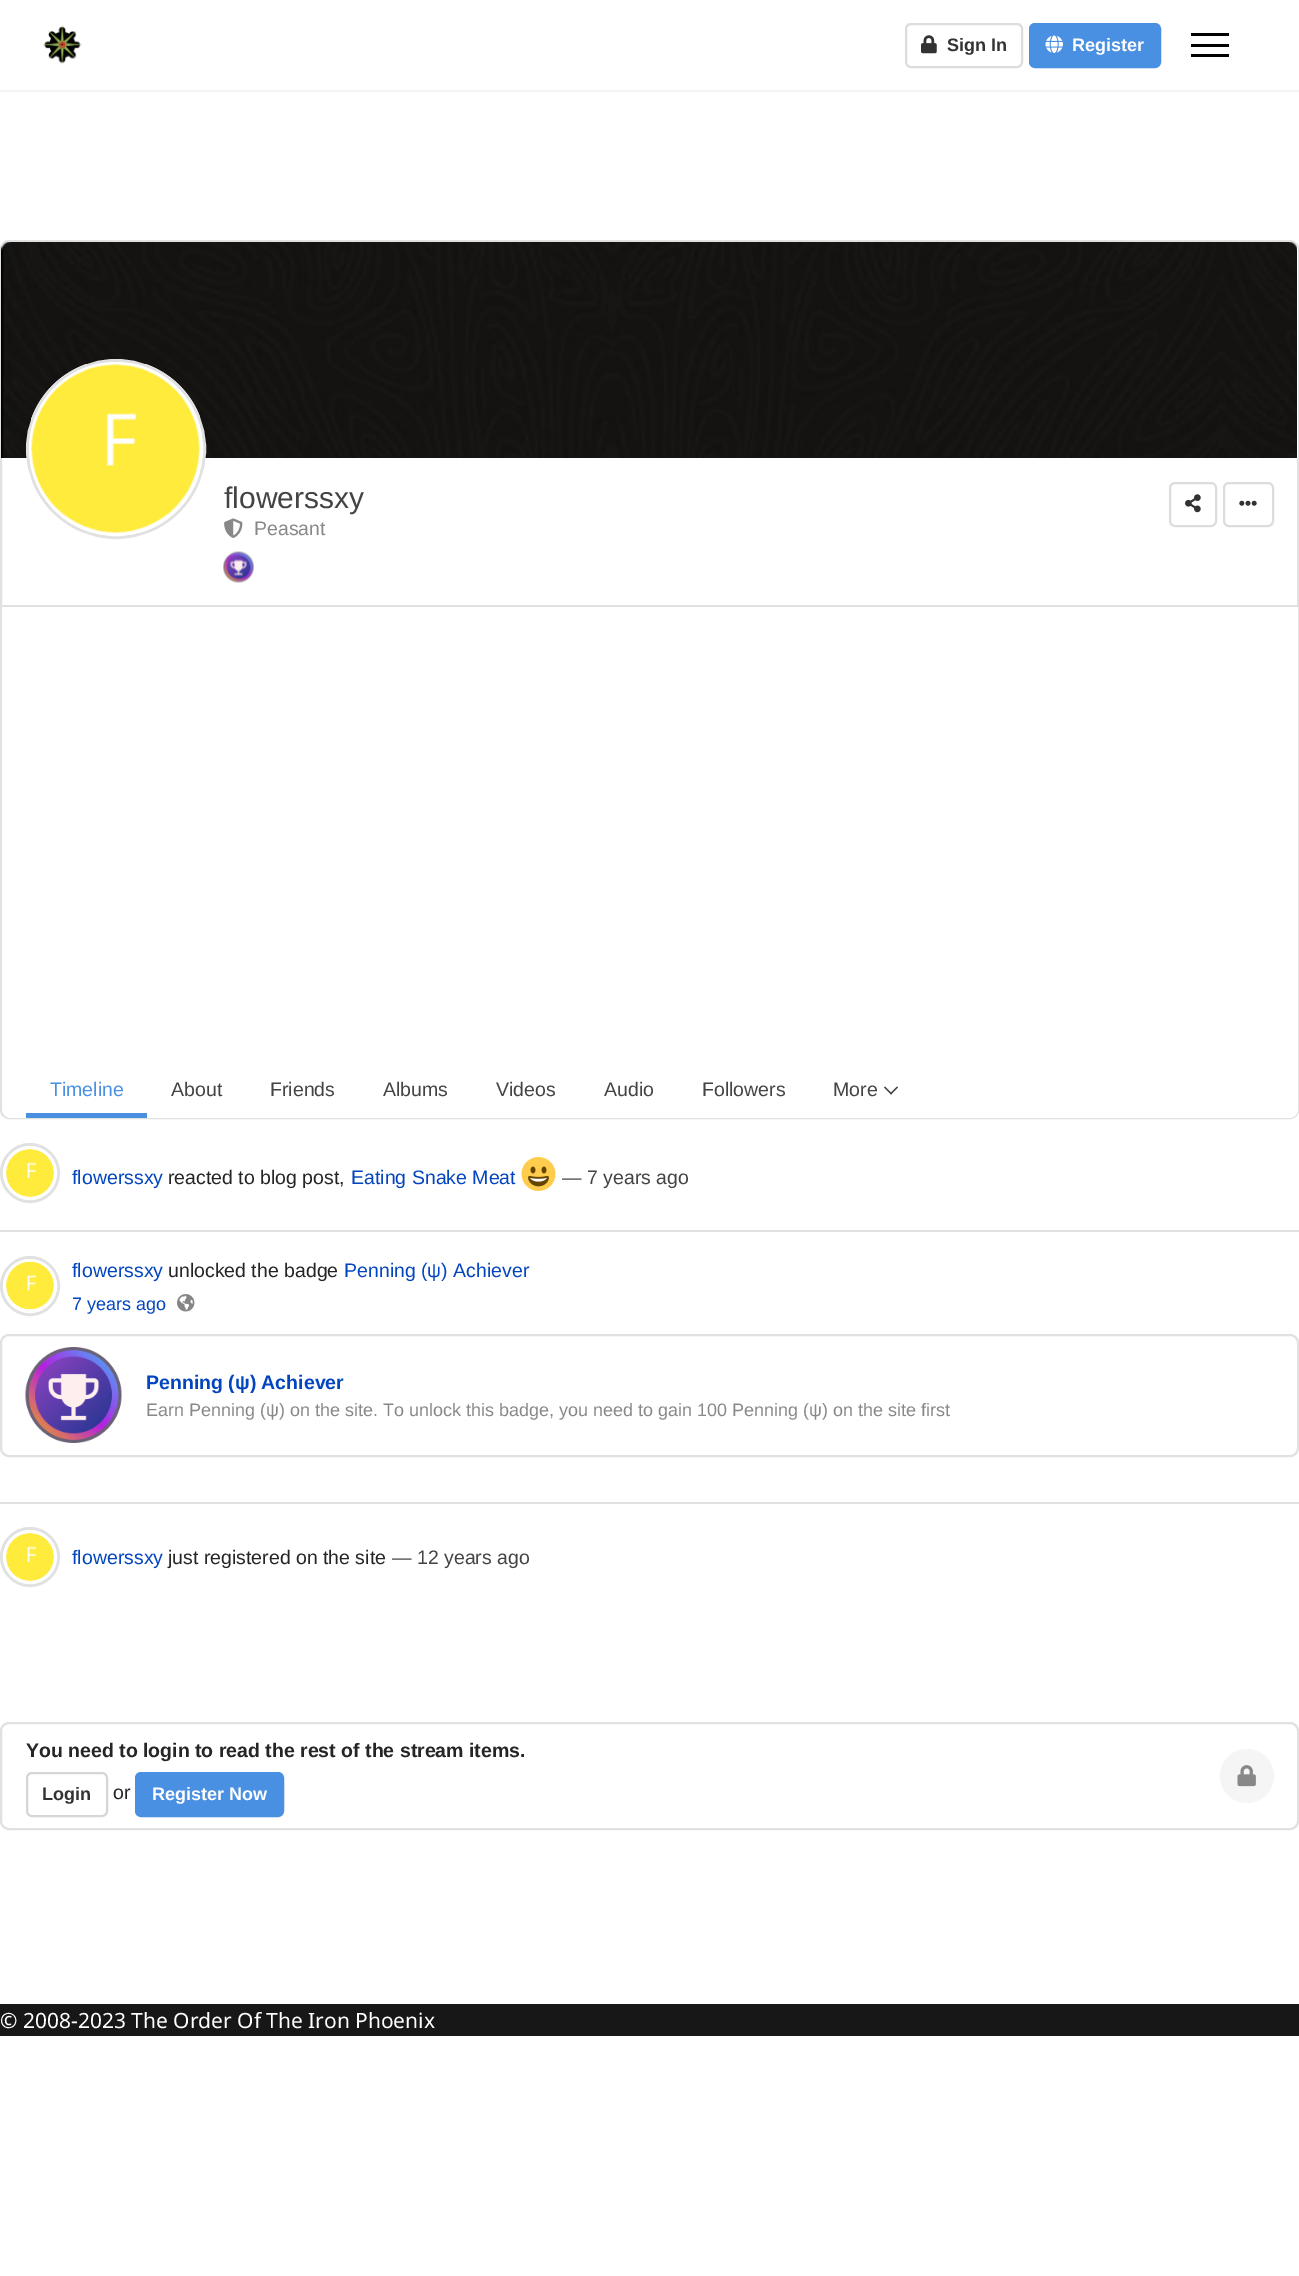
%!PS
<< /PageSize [1299 2276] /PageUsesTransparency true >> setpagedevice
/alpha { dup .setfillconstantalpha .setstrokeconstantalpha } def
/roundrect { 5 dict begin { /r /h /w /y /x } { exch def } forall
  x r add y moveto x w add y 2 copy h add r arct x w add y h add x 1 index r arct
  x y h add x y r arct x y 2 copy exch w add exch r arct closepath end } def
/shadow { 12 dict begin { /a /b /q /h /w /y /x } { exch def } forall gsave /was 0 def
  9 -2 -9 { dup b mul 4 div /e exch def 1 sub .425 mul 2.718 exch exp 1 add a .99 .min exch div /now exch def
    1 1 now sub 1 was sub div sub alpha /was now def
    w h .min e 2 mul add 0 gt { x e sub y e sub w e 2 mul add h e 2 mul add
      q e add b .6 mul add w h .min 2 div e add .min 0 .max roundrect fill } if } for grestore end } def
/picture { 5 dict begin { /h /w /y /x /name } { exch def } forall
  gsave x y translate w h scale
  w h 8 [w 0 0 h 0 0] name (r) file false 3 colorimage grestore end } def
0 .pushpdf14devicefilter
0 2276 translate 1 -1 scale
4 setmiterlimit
1 setgray
0 0 1299 2276 rectfill
gsave
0 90 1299 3 rectclip
0 setgray
0 0 1299 90 0 3 0.1 shadow
grestore
(img1.rgb) 42 25 40 40 picture
0.867 setgray
2 setlinewidth
906 24 116 43 5 roundrect stroke
(img2.rgb) 921 35 16 19 picture
/LiberationSans-Bold [18 0 0 -18 0 0] selectfont
0.2 setgray
947 51 moveto (Sign In) show
0.29 0.565 0.886 setrgbcolor
1030 24 130 43 5 roundrect gsave fill grestore
stroke
(img3.rgb) 1045 35 18 18 picture
1 setgray
1072 51 moveto (Register) show
0 setgray
1191 33 38 3 rectfill
1191 44 38 3 rectfill
1191 54 38 3 rectfill
0.882 setgray
1 241 1297 877 8 roundrect stroke
1 setgray
newpath 11 242 moveto 1289 242 lineto 1294 242 1298 246 1298 251 curveto 1298 458 lineto 2 458 lineto 2 251 lineto 2 246 6 242 11 242 curveto closepath fill
(img4.rgb) 1 242 1296 216 picture
newpath 116 449 88.5 0 360 arc closepath gsave fill grestore
0.882 setgray
3 setlinewidth
stroke
1 setgray
newpath 116 449 85.5 0 360 arc closepath stroke
(img5.rgb) 31 364 169 169 picture
/LiberationSans-Regular [30 0 0 -30 0 0] selectfont
0.267 setgray
224 508 moveto (flowerssxy) show
(img6.rgb) 224 518 19 20 picture
/LiberationSans-Regular [19.5 0 0 -19.5 0 0] selectfont
0.533 setgray
254 535 moveto (Peasant) show
(img7.rgb) 223 551 31 32 picture
0.867 setgray
2 setlinewidth
1170 483 46 43 5 roundrect stroke
(img8.rgb) 1185 494 16 19 picture
1224 483 49 43 5 roundrect stroke
(img9.rgb) 1239 500 18 6 picture
1 setgray
newpath 2 605 moveto 1298 605 lineto 1298 1109 lineto 1298 1114 1294 1118 1289 1118 curveto 11 1118 lineto 6 1118 2 1114 2 1109 curveto closepath fill
0.882 setgray
2 605 1296 2 rectfill
0.29 0.565 0.886 setrgbcolor
26 1113 121 5 rectfill
50 1096 moveto (Timeline) show
0.267 setgray
171 1096 moveto (About) show
270 1096 moveto (Friends) show
383 1096 moveto (Albums) show
496 1096 moveto (Videos) show
604 1096 moveto (Audio) show
702 1096 moveto (Followers) show
833 1096 moveto (More) show
newpath 898 1087.5 moveto 891 1094.5 lineto 890 1093.5 lineto 897 1086.5 lineto closepath fill
newpath 892 1093.5 moveto 891 1094.5 lineto 884 1087.5 lineto 885 1086.5 lineto closepath fill
0.882 setgray
3 setlinewidth
newpath 30 1173 28.5 0 360 arc closepath stroke
1 setgray
newpath 30 1173 25.5 0 360 arc closepath stroke
(img10.rgb) 6 1149 48 48 picture
0.012 0.271 0.749 setrgbcolor
72 1184 moveto (flowerssxy) show
0.145 setgray
168 1184 moveto (reacted to blog post,) show
0.012 0.271 0.749 setrgbcolor
351 1184 moveto (Eating Snake Meat) show
(img11.rgb) 521 1157 35 34 picture
0.267 setgray
562 1184 moveto (— 7 years ago) show
0.882 setgray
0 1230 1299 2 rectfill
newpath 30 1286 28.5 0 360 arc closepath stroke
1 setgray
newpath 30 1286 25.5 0 360 arc closepath stroke
(img12.rgb) 6 1261 48 49 picture
0.012 0.271 0.749 setrgbcolor
72 1277 moveto (flowerssxy) show
0.145 setgray
168 1277 moveto (unlocked the badge) show
0.012 0.271 0.749 setrgbcolor
344 1277 moveto (Penning \(ψ\) Achiever) show
/LiberationSans-Regular [18 0 0 -18 0 0] selectfont
72 1310 moveto (7 years ago) show
(img13.rgb) 177 1294 18 18 picture
0.882 setgray
2 setlinewidth
1 1335 1297 121 8 roundrect stroke
(img14.rgb) 25 1347 97 96 picture
/LiberationSans-Bold [19.5 0 0 -19.5 0 0] selectfont
0.012 0.271 0.749 setrgbcolor
146 1389 moveto (Penning \(ψ\) Achiever) show
/LiberationSans-Regular [18 0 0 -18 0 0] selectfont
0.533 setgray
146 1416 moveto (Earn Penning \(ψ\) on the site. To unlock this badge, you need to gain 100 Penning \(ψ\) on the site first) show
0.882 setgray
0 1502 1299 2 rectfill
3 setlinewidth
newpath 30 1557 28.5 0 360 arc closepath stroke
1 setgray
newpath 30 1557 25.5 0 360 arc closepath stroke
(img10.rgb) 6 1533 48 48 picture
/LiberationSans-Regular [19.5 0 0 -19.5 0 0] selectfont
0.012 0.271 0.749 setrgbcolor
72 1564 moveto (flowerssxy) show
0.145 setgray
168 1564 moveto (just registered on the site) show
0.267 setgray
392 1564 moveto (— 12 years ago) show
0.882 setgray
2 setlinewidth
1 1723 1297 106 8 roundrect stroke
/LiberationSans-Bold [19.5 0 0 -19.5 0 0] selectfont
0.145 setgray
26 1757 moveto (You need to login to read the rest of the stream items.) show
0.839 setgray
27 1773 80 43 5 roundrect stroke
/LiberationSans-Bold [18 0 0 -18 0 0] selectfont
0.2 setgray
42 1800 moveto (Login) show
/LiberationSans-Regular [19.5 0 0 -19.5 0 0] selectfont
0.145 setgray
113 1799 moveto (or) show
0.29 0.565 0.886 setrgbcolor
136 1773 147 43 5 roundrect gsave fill grestore
stroke
/LiberationSans-Bold [18 0 0 -18 0 0] selectfont
1 setgray
152 1800 moveto (Register Now) show
0.961 setgray
newpath 1247 1776 27 0 360 arc closepath fill
(img15.rgb) 1237 1765 19 22 picture
0.09 setgray
0 2004 1299 32 rectfill
/NotoSans-Regular [21 0 0 -21 0 0] selectfont
1 setgray
0 2028 moveto (© 2008-2023 The Order Of The Iron Phoenix) show
.poppdf14devicefilter showpage
